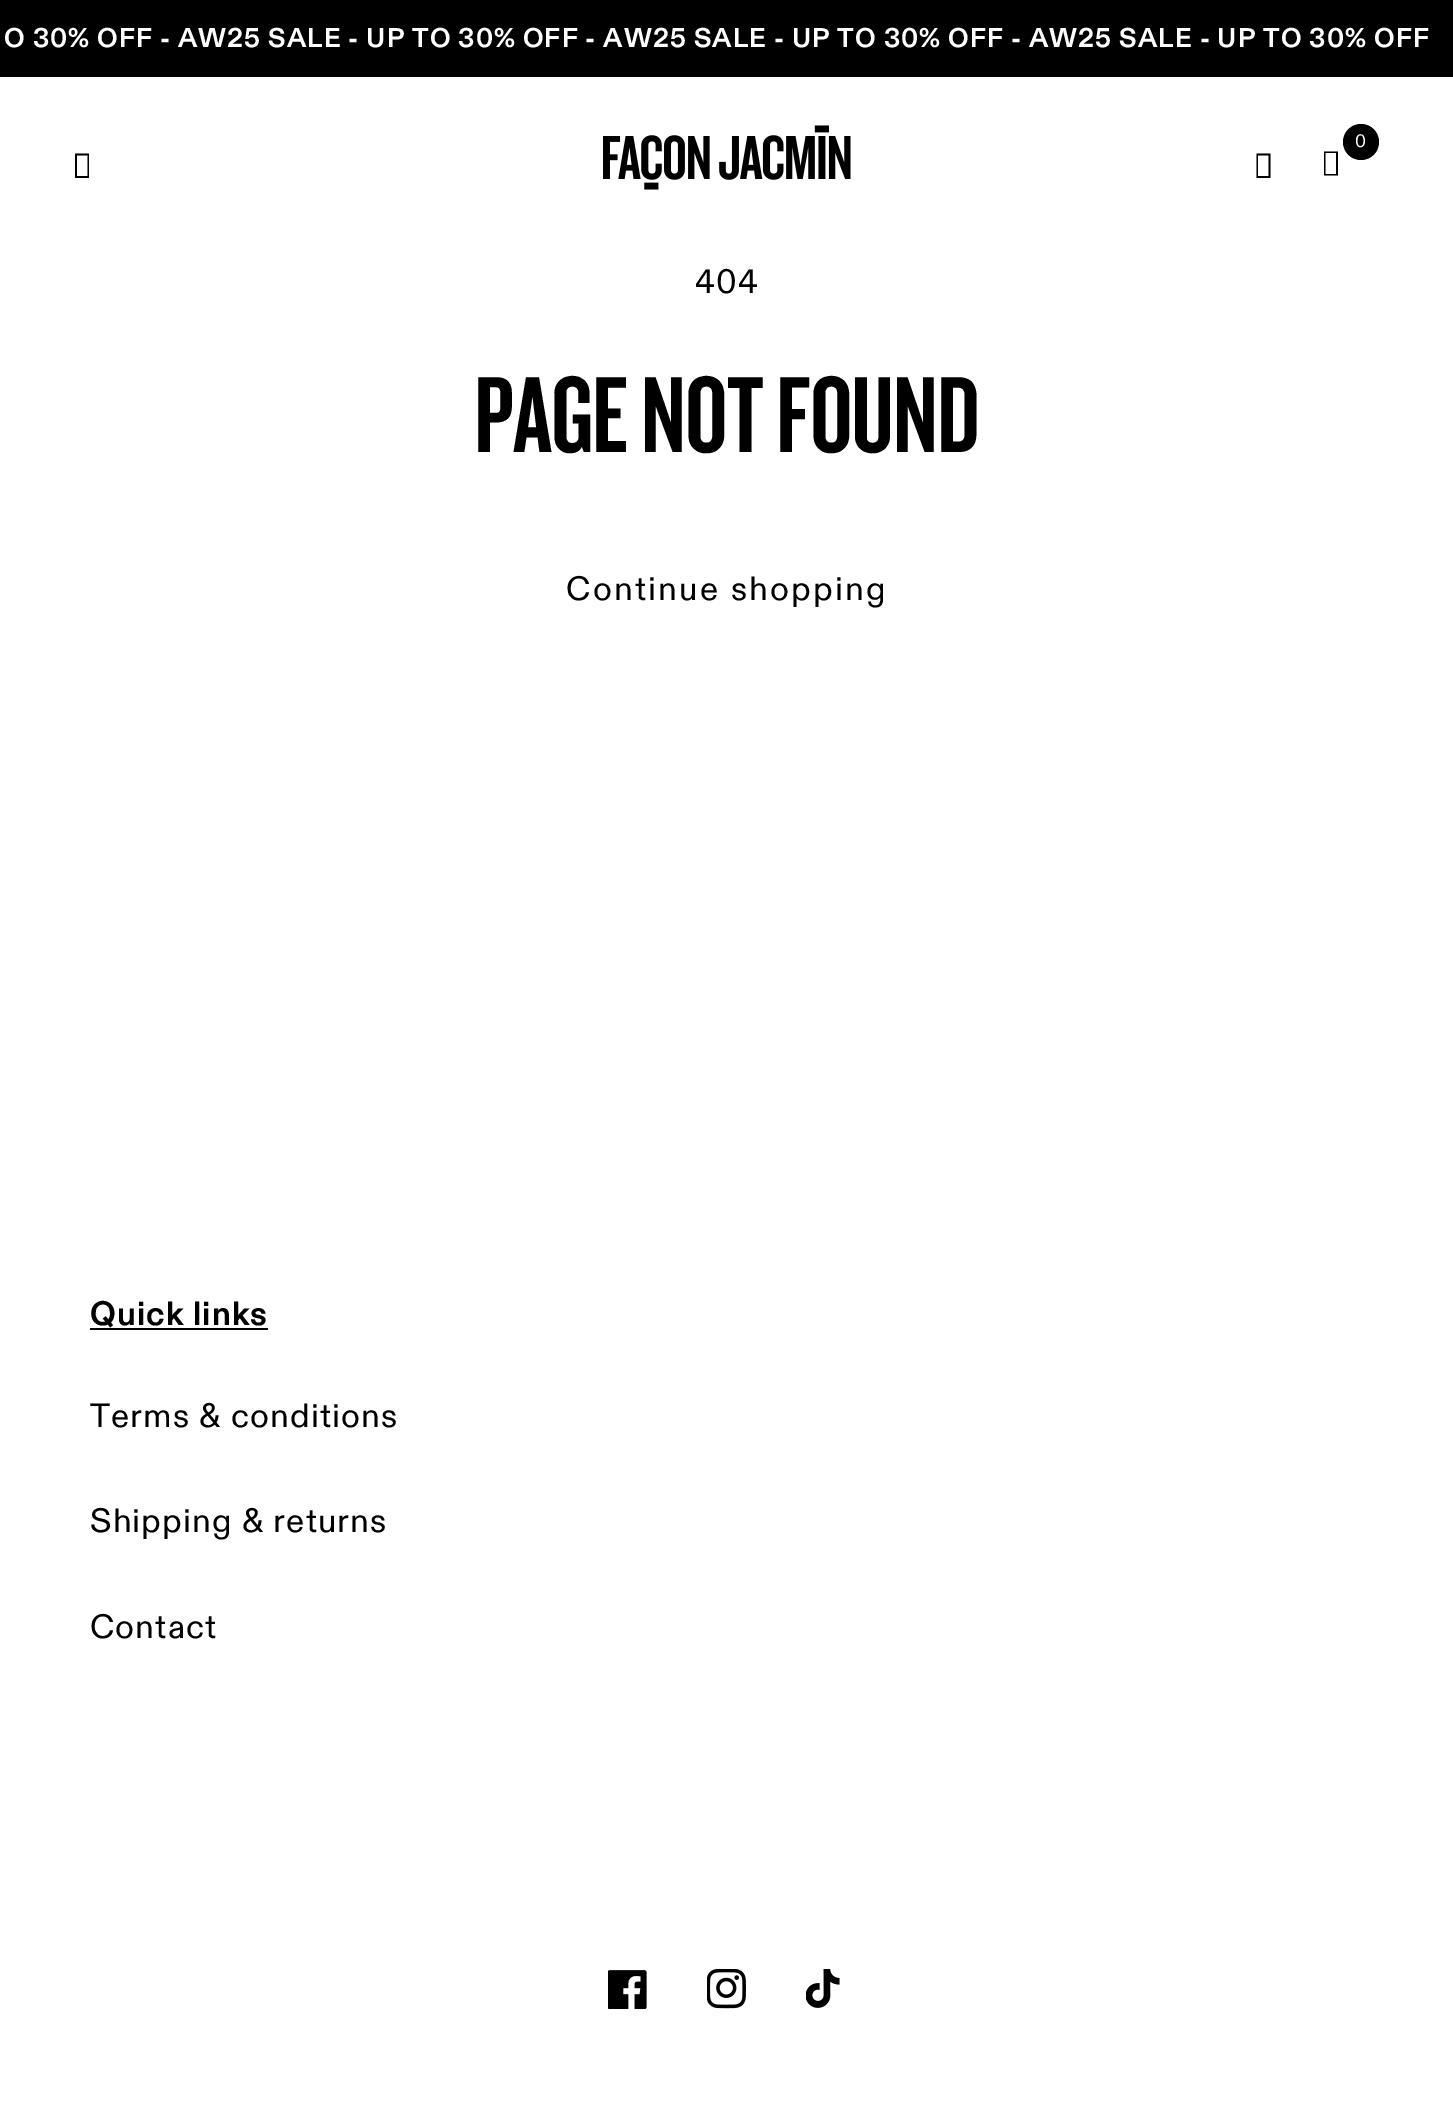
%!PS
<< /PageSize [1453 2128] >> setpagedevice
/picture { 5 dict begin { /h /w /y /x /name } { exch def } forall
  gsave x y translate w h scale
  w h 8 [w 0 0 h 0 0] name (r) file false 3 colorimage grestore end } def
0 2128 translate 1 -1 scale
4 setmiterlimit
1 setgray
0 0 1453 2128 rectfill
0 setgray
0 0 1453 77 rectfill
/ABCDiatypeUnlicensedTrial-Bold [27 0 0 -27 0 0] selectfont
1 setgray
4 47 moveto 1.12 0 (O 30% OFF - AW25 SALE - UP TO 30% OFF - AW25 SALE - UP TO 30% OFF - AW25 SALE - UP TO 30% OFF) ashow
(img1.rgb) 603 125 248 65 picture
0 setgray
newpath 1361 142 18 0 360 arc closepath fill
/ABCDiatypeUnlicensedTrial-Regular [18 0 0 -18 0 0] selectfont
1 setgray
1355 147 moveto 1.12 0 (0) ashow
0 setgray
newpath 1324 175.5 moveto 1324 151.5 lineto 1338 151.5 lineto 1338 175.5 lineto closepath 1325.5 174 moveto 1336 174 lineto 1336 153 lineto 1325.5 153 lineto closepath fill
newpath 1256.5 178 moveto 1256.5 153.5 lineto 1270.5 153.5 lineto 1270.5 178 lineto closepath 1258 176 moveto 1268.5 176 lineto 1268.5 155.5 lineto 1258 155.5 lineto closepath fill
newpath 75 178 moveto 75 153.5 lineto 89 153.5 lineto 89 178 lineto closepath 77 176 moveto 87.5 176 lineto 87.5 155.5 lineto 77 155.5 lineto closepath fill
/ABCDiatypeUnlicensedTrial-Regular [33.75 0 0 -33.75 0 0] selectfont
695 293 moveto 1.12 0 (404) ashow
/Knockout-Medium [112.5 0 0 -112.5 0 0] selectfont
474 452 moveto -1.1 0 (PAGE NOT FOUND) ashow
/ABCDiatypeUnlicensedTrial-Regular [33.75 0 0 -33.75 0 0] selectfont
566 600 moveto 2.25 0 (Continue shopping) ashow
/ABCDiatypeUnlicensedTrial-Bold [33.75 0 0 -33.75 0 0] selectfont
90 1325 moveto 1.12 0 (Quick links) ashow
90 1328 178 2 rectfill
/ABCDiatypeUnlicensedTrial-Regular [33.75 0 0 -33.75 0 0] selectfont
90 1427 moveto 1.12 0 (Terms & conditions) ashow
90 1532 moveto 1.12 0 (Shipping & returns) ashow
90 1638 moveto 1.12 0 (Contact) ashow
(img2.rgb) 608 1970 39 39 picture
(img3.rgb) 707 1969 39 40 picture
(img4.rgb) 806 1969 34 39 picture
showpage
